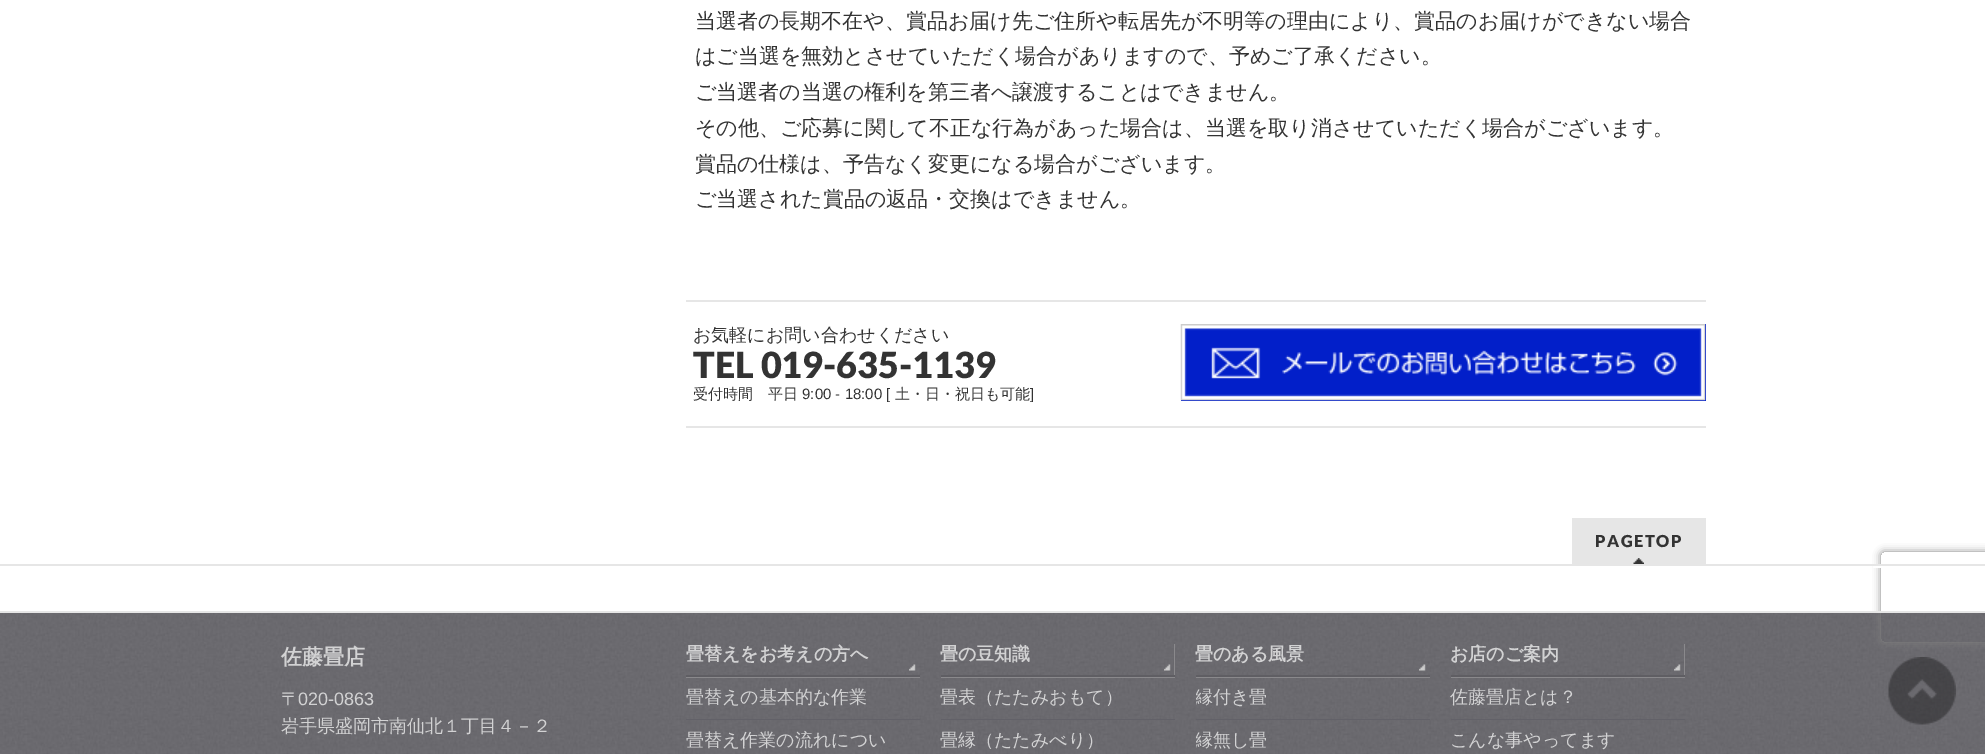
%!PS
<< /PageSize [1985 754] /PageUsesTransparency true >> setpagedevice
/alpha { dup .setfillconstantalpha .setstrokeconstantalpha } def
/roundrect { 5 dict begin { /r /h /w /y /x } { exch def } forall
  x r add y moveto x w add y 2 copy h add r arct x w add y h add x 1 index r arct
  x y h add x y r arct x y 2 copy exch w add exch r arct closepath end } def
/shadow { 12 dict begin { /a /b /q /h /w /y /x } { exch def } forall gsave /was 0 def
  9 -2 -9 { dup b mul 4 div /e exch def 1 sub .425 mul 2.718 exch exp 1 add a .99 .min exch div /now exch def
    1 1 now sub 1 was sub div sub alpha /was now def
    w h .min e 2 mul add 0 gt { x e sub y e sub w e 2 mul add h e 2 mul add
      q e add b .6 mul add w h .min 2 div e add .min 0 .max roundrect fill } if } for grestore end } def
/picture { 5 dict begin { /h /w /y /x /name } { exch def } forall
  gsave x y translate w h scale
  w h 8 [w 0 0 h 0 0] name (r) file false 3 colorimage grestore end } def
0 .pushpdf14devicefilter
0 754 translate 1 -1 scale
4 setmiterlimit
1 setgray
0 0 1985 754 rectfill
/WenQuanYiZenHei-Medium [21 0 0 -21 0 0] selectfont
0.2 setgray
695 28 moveto (当選者の長期不在や、賞品お届け先ご住所や転居先が不明等の理由により、賞品のお届けができない場合) show
695 63 moveto (はご当選を無効とさせていただく場合がありますので、予めご了承ください。) show
695 99 moveto (ご当選者の当選の権利を第三者へ譲渡することはできません。) show
695 135 moveto (その他、ご応募に関して不正な行為があった場合は、当選を取り消させていただく場合がございます。) show
695 171 moveto (賞品の仕様は、予告なく変更になる場合がございます。) show
695 206 moveto (ご当選された賞品の返品・交換はできません。) show
0.902 setgray
686 300 1020 2 rectfill
686 426 1020 2 rectfill
/WenQuanYiZenHei-Medium [18 0 0 -18 0 0] selectfont
0.2 setgray
693 341 moveto (お気軽にお問い合わせください) show
/Lato-Black [36 0 0 -36 0 0] selectfont
693 378 moveto (TEL 019-635-1139) show
/WenQuanYiZenHei-Medium [15 0 0 -15 0 0] selectfont
693 399 moveto (受付時間　平日) show
/LiberationSans-Regular [15 0 0 -15 0 0] selectfont
802 399 moveto (9:00 - 18:00 [) show
/WenQuanYiZenHei-Medium [15 0 0 -15 0 0] selectfont
895 399 moveto (土・日・祝日も可能) show
/LiberationSans-Regular [15 0 0 -15 0 0] selectfont
1030 399 moveto (]) show
0.008 0.122 0.788 setrgbcolor
1181 324 525 77 rectfill
(img1.rgb) 1180 324 526 77 picture
0.902 setgray
1572 518 134 46 rectfill
(img2.rgb) 1633 558 11 6 picture
/Lato-Black [16.5 0 0 -16.5 0 0] selectfont
0.2 setgray
1595 547 moveto 1.5 0 (PAGETOP) ashow
(img3.rgb) 0 613 1985 141 picture
gsave
newpath 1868 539 moveto 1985 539 lineto 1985 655 lineto 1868 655 lineto closepath 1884 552 moveto 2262 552 lineto 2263.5 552 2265 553.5 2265 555 curveto 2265 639 lineto 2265 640.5 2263.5 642 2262 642 curveto 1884 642 lineto 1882.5 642 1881 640.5 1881 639 curveto 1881 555 lineto 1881 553.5 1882.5 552 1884 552 curveto closepath eoclip newpath
0.502 setgray
1881 552 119 90 3 4 1 shadow
grestore
1 setgray
1873 566 8 2 rectfill
0.902 setgray
0 564 1985 2 rectfill
0 611 1985 2 rectfill
/WenQuanYiZenHei-Bold [21 0 0 -21 0 0] selectfont
0.824 0.824 0.827 setrgbcolor
281 664 moveto (佐藤畳店) show
/WenQuanYiZenHei-Medium [18 0 0 -18 0 0] selectfont
281 705 moveto (〒) show
/LiberationSans-Regular [18 0 0 -18 0 0] selectfont
298 705 moveto (020-0863) show
/WenQuanYiZenHei-Medium [18 0 0 -18 0 0] selectfont
281 732 moveto (岩手県盛岡市南仙北１丁目４－２) show
0.541 0.537 0.549 setrgbcolor
newpath 686 676 moveto 686 678 lineto 920 678 lineto 920 644 lineto 920 676 lineto closepath fill
(img4.rgb) 909 664 7 7 picture
0.373 0.369 0.388 setrgbcolor
686 675 234 2 rectfill
/WenQuanYiZenHei-Bold [18 0 0 -18 0 0] selectfont
0.824 0.824 0.827 setrgbcolor
686 660 moveto (畳替えをお考えの方へ) show
0.384 0.38 0.408 setrgbcolor
686 719 234 1 rectfill
/WenQuanYiZenHei-Medium [18 0 0 -18 0 0] selectfont
0.824 0.824 0.827 setrgbcolor
686 703 moveto (畳替えの基本的な作業) show
686 746 moveto (畳替え作業の流れについ) show
0.541 0.537 0.549 setrgbcolor
newpath 941 676 moveto 941 678 lineto 1175 678 lineto 1175 644 lineto 1174 644 lineto 1174 676 lineto closepath fill
(img5.rgb) 1164 664 7 7 picture
0.373 0.369 0.388 setrgbcolor
941 675 234 2 rectfill
/WenQuanYiZenHei-Bold [18 0 0 -18 0 0] selectfont
0.824 0.824 0.827 setrgbcolor
940 660 moveto (畳の豆知識) show
0.384 0.38 0.408 setrgbcolor
941 719 234 1 rectfill
/WenQuanYiZenHei-Medium [18 0 0 -18 0 0] selectfont
0.824 0.824 0.827 setrgbcolor
940 703 moveto (畳表（たたみおもて）) show
940 746 moveto (畳縁（たたみべり）) show
0.541 0.537 0.549 setrgbcolor
newpath 1196 676 moveto 1196 678 lineto 1430 678 lineto 1430 644 lineto 1430 676 lineto closepath fill
(img6.rgb) 1419 664 7 7 picture
0.373 0.369 0.388 setrgbcolor
1196 675 234 2 rectfill
/WenQuanYiZenHei-Bold [18 0 0 -18 0 0] selectfont
0.824 0.824 0.827 setrgbcolor
1195 660 moveto (畳のある風景) show
0.384 0.38 0.408 setrgbcolor
1196 719 234 1 rectfill
gsave
1196 686 234 33 rectclip
/WenQuanYiZenHei-Medium [18 0 0 -18 0 0] selectfont
0.824 0.824 0.827 setrgbcolor
1195 703 moveto (縁付き畳) show
grestore
gsave
1196 729 234 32 rectclip
/WenQuanYiZenHei-Medium [18 0 0 -18 0 0] selectfont
0.824 0.824 0.827 setrgbcolor
1195 746 moveto (縁無し畳) show
grestore
0.541 0.537 0.549 setrgbcolor
newpath 1451 676 moveto 1451 678 lineto 1685 678 lineto 1685 644 lineto 1684 644 lineto 1684 676 lineto closepath fill
(img7.rgb) 1674 664 7 7 picture
0.373 0.369 0.388 setrgbcolor
1451 675 234 2 rectfill
0.824 0.824 0.827 setrgbcolor
1450 660 moveto (お店のご案内) show
0.384 0.38 0.408 setrgbcolor
1451 719 234 1 rectfill
/WenQuanYiZenHei-Medium [18 0 0 -18 0 0] selectfont
0.824 0.824 0.827 setrgbcolor
1450 703 moveto (佐藤畳店とは？) show
1450 746 moveto (こんな事やってます) show
(img8.rgb) 1888 657 68 68 picture
.poppdf14devicefilter showpage
